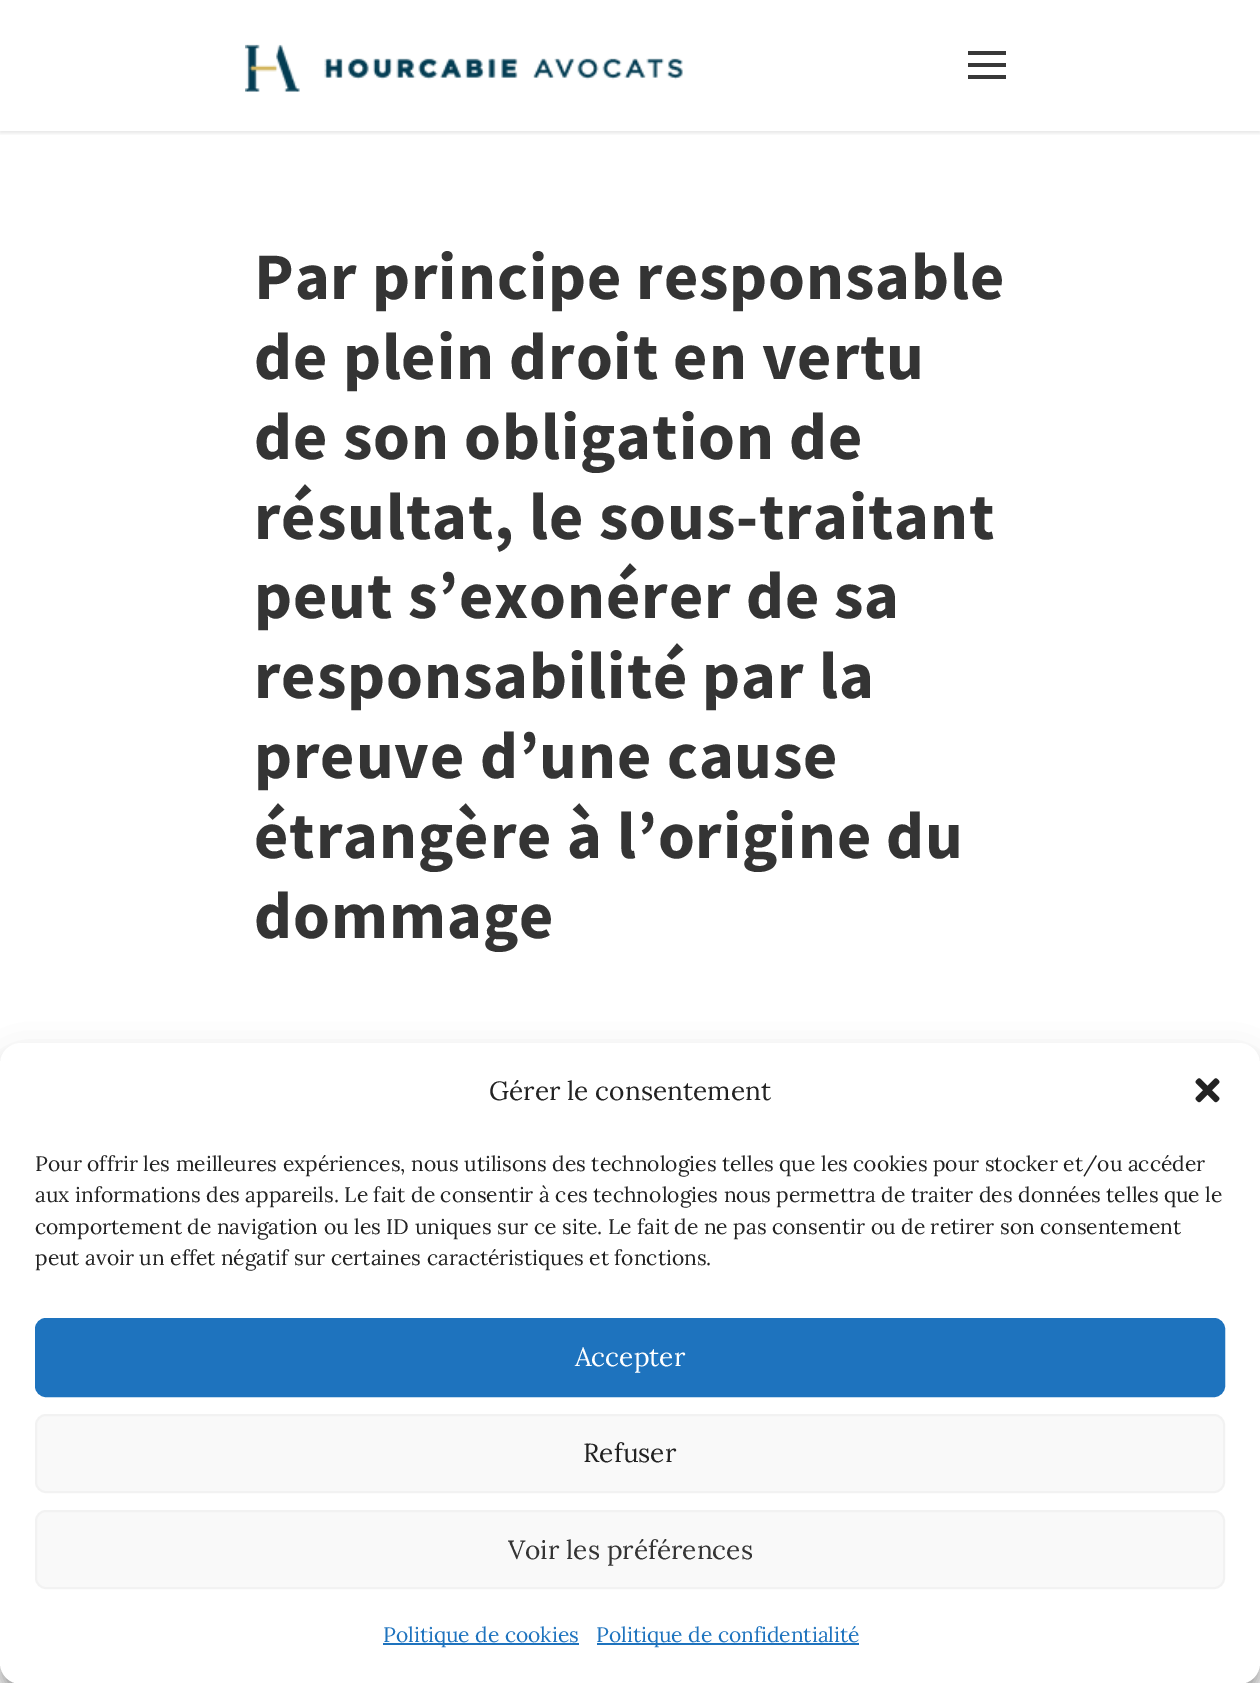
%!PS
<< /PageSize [1260 1683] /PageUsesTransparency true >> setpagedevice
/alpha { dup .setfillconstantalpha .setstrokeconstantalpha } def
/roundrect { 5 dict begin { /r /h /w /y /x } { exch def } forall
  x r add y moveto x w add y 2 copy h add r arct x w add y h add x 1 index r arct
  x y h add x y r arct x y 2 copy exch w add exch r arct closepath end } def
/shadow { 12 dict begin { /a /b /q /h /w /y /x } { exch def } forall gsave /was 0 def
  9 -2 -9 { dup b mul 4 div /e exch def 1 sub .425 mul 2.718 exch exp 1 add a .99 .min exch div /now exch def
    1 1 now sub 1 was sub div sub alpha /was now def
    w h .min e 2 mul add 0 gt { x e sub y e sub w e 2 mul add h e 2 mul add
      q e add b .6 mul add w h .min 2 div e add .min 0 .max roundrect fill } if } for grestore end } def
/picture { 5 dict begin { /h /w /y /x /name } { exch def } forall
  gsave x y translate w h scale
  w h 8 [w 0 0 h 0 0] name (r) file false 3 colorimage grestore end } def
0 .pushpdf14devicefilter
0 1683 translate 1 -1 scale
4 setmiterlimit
1 setgray
0 0 1260 1683 rectfill
gsave
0 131 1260 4 rectclip
0 setgray
0 2 1260 131 0 2 0.1 shadow
grestore
(img1.rgb) 245 44 438 48 picture
0.22 setgray
968 51 38 4 rectfill
968 63 38 4 rectfill
968 75 38 4 rectfill
/SourceSansPro-Bold [66.5 0 0 -66.5 0 0] selectfont
0.204 setgray
254 299 moveto 0.9 0 (Par principe responsable) ashow
254 379 moveto 0.9 0 (de plein droit en vertu) ashow
254 459 moveto 0.9 0 (de son obligation de) ashow
254 539 moveto 0.9 0 (résultat, le sous-traitant) ashow
254 618 moveto 0.9 0 (peut s’exonérer de sa) ashow
254 698 moveto 0.9 0 (responsabilité par la) ashow
254 778 moveto 0.9 0 (preuve d’une cause) ashow
254 858 moveto 0.9 0 (étrangère à l’origine du) ashow
254 938 moveto 0.9 0 (dommage) ashow
0 setgray
0 1054 1260 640 21 5 0.23 shadow
0 1061 1260 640 21 17.5 0.19 shadow
1 setgray
0 1043 1260 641 21 roundrect fill
/Lora-Regular [26.25 0 0 -26.25 0 0] selectfont
0.133 setgray
489 1100 moveto (Gérer le consentement) show
(img2.rgb) 1195 1078 25 25 picture
/Lora-Regular [21 0 0 -21 0 0] selectfont
35 1171 moveto (Pour offrir les meilleures expériences, nous utilisons des technologies telles que les cookies pour stocker et/ou accéder) show
35 1202 moveto (aux informations des appareils. Le fait de consentir à ces technologies nous permettra de traiter des données telles que le) show
35 1234 moveto (comportement de navigation ou les ID uniques sur ce site. Le fait de ne pas consentir ou de retirer son consentement) show
35 1265 moveto (peut avoir un effet négatif sur certaines caractéristiques et fonctions.) show
0.118 0.451 0.745 setrgbcolor
36 1319 1188 77 10 roundrect gsave fill grestore
2 setlinewidth
stroke
/Lora-Regular [26.25 0 0 -26.25 0 0] selectfont
1 setgray
575 1366 moveto (Accepter) show
0.976 setgray
36 1415 1188 77 10 roundrect gsave fill grestore
0.949 setgray
stroke
0.133 setgray
583 1462 moveto (Refuser) show
0.976 setgray
36 1511 1188 77 10 roundrect gsave fill grestore
0.949 setgray
stroke
0.204 setgray
508 1559 moveto (Voir les préférences) show
0.118 0.451 0.745 setrgbcolor
383 1643 196 2 rectfill
/Lora-Regular [21 0 0 -21 0 0] selectfont
383 1642 moveto (Politique de cookies) show
597 1643 262 2 rectfill
596 1642 moveto (Politique de confidentialité) show
.poppdf14devicefilter showpage
